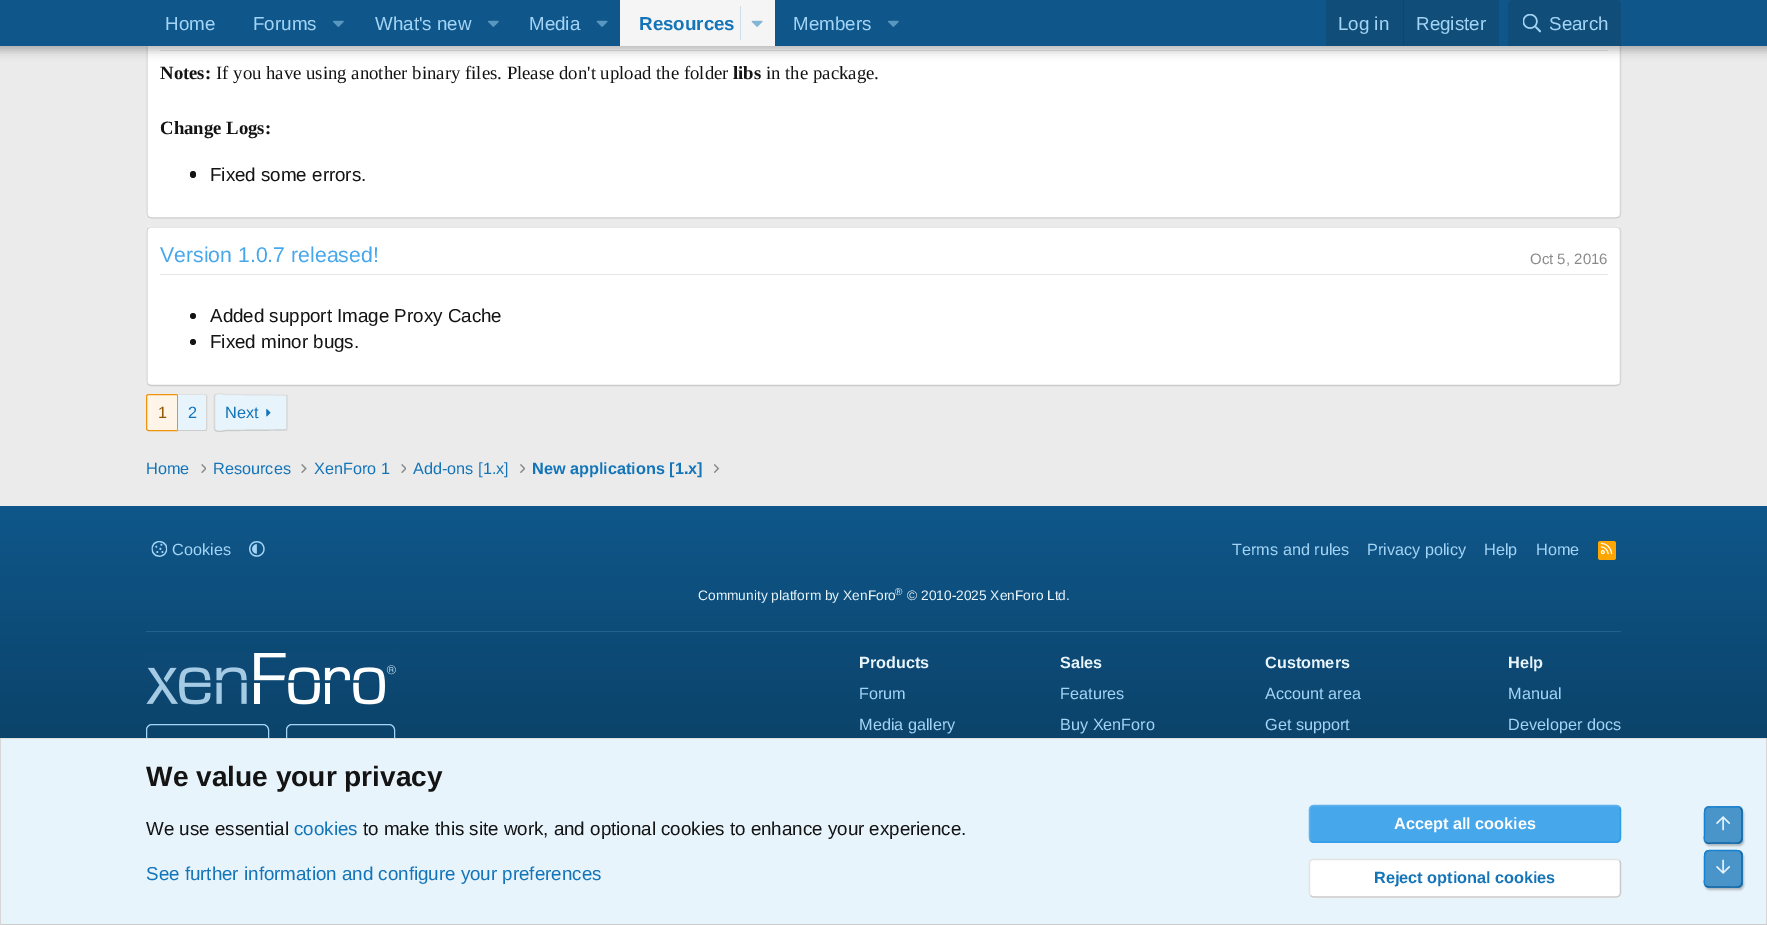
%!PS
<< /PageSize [1767 925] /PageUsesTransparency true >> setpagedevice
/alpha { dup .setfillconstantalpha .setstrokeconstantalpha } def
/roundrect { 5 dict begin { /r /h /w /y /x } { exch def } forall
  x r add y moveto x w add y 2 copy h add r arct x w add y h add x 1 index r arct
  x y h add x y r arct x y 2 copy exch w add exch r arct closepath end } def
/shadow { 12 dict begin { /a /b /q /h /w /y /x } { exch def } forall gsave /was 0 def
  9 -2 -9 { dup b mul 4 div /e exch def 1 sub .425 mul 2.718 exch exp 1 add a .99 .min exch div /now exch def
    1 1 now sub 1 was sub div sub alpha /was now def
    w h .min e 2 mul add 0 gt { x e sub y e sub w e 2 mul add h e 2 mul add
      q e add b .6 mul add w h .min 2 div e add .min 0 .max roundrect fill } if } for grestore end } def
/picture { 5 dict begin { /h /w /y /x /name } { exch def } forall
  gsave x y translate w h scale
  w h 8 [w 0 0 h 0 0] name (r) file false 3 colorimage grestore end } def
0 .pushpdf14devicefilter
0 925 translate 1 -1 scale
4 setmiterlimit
0.922 setgray
0 0 1767 925 rectfill
1 setgray
146 4 1475 215 5 roundrect fill
0.839 setgray
1.2 setlinewidth
newpath 1619.5 5.5 moveto 1620.5 8.5 lineto 1620.5 214 lineto 1619.5 217 lineto stroke
0.8 setgray
newpath 1619.5 217 moveto 1616 218 lineto 151 218 lineto 148 217 lineto stroke
0.839 setgray
newpath 148 217 moveto 147 214 lineto 147 8.5 lineto 148 5.5 lineto stroke
0.902 setgray
160 50 1448 1 rectfill
0 setgray
-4 -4 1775 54 0 5 0.3 shadow
0.059 0.341 0.541 setrgbcolor
0 0 1767 46 rectfill
/LiberationSans-Regular [18.75 0 0 -18.75 0 0] selectfont
0.639 0.831 0.961 setrgbcolor
165 30 moveto (Home) show
253 30 moveto (Forums) show
(img1.rgb) 333 20 11 7 picture
375 30 moveto (What's new) show
(img1.rgb) 488 20 11 7 picture
529 30 moveto (Media) show
(img2.rgb) 596 20 12 7 picture
0.961 setgray
620 0 155 46 rectfill
/LiberationSans-Bold [18.75 0 0 -18.75 0 0] selectfont
0.078 0.455 0.722 setrgbcolor
639 30 moveto (Resources) show
0.808 0.875 0.922 setrgbcolor
740 6 1 34 rectfill
(img3.rgb) 751 20 12 7 picture
/LiberationSans-Regular [18.75 0 0 -18.75 0 0] selectfont
0.639 0.831 0.961 setrgbcolor
793 30 moveto (Members) show
(img1.rgb) 888 20 11 7 picture
0.063 0.302 0.471 setrgbcolor
1326 0 173 46 rectfill
0.639 0.831 0.961 setrgbcolor
1338 30 moveto (Log in) show
0.067 0.267 0.412 setrgbcolor
1403 0 1 46 rectfill
0.639 0.831 0.961 setrgbcolor
1416 30 moveto (Register) show
0.063 0.302 0.471 setrgbcolor
newpath 1513 0 moveto 1616 0 lineto 1619 0 1621 2 1621 5 curveto 1621 46 lineto 1508 46 lineto 1508 5 lineto 1508 2 1510 0 1513 0 curveto closepath fill
(img4.rgb) 1523 14 18 19 picture
0.639 0.831 0.961 setrgbcolor
1549 30 moveto (Search) show
/LiberationSerif-Bold [18.75 0 0 -18.75 0 0] selectfont
0.078 setgray
160 79 moveto (Notes:) show
/LiberationSerif-Regular [18.75 0 0 -18.75 0 0] selectfont
216 79 moveto (If you have using another binary files. Please don't upload the folder) show
/LiberationSerif-Bold [18.75 0 0 -18.75 0 0] selectfont
733 79 moveto (libs) show
/LiberationSerif-Regular [18.75 0 0 -18.75 0 0] selectfont
766 79 moveto (in the package.) show
/LiberationSerif-Bold [18.75 0 0 -18.75 0 0] selectfont
160 134 moveto (Change Logs:) show
190 171 6 7 3 roundrect fill
/LiberationSans-Regular [18.75 0 0 -18.75 0 0] selectfont
210 181 moveto (Fixed some errors.) show
1 setgray
146 226 1475 160 5 roundrect fill
0.878 setgray
newpath 148 228 moveto 151 227 lineto 1616 227 lineto 1619.5 228 lineto stroke
0.839 setgray
newpath 1619.5 228 moveto 1620 229 1620.5 230 1620.5 231 curveto 1620.5 381 lineto 1620.5 382.5 1620 383.5 1619.5 384.5 curveto stroke
0.8 setgray
newpath 1619.5 384.5 moveto 1616 385.5 lineto 151 385.5 lineto 148 384.5 lineto stroke
0.839 setgray
newpath 148 384.5 moveto 147.5 383.5 147 382.5 147 381 curveto 147 231 lineto 147 230 147.5 229 148 228 curveto stroke
0.902 setgray
160 274 1448 1 rectfill
/LiberationSans-Regular [21.25 0 0 -21.25 0 0] selectfont
0.278 0.655 0.922 setrgbcolor
160 262 moveto (Version 1.0.7 released!) show
/LiberationSans-Regular [15 0 0 -15 0 0] selectfont
0.541 setgray
1530 264 moveto (Oct 5, 2016) show
0.078 setgray
newpath 193 316 3 0 360 arc closepath fill
/LiberationSans-Regular [18.75 0 0 -18.75 0 0] selectfont
210 322 moveto (Added support Image Proxy Cache) show
newpath 193 342 3 0 360 arc closepath fill
210 348 moveto (Fixed minor bugs.) show
0.996 0.957 0.906 setrgbcolor
newpath 148.5 394.5 moveto 177.5 394.5 lineto 177.5 430.5 lineto 148.5 430.5 lineto 147.5 430.5 146.5 429.5 146.5 428.5 curveto 146.5 396.5 lineto 146.5 395.5 147.5 394.5 148.5 394.5 curveto closepath gsave fill grestore
0.949 0.576 0.051 setrgbcolor
1 setlinewidth
stroke
/LiberationSans-Regular [16.25 0 0 -16.25 0 0] selectfont
0.569 0.345 0.031 setrgbcolor
158 418 moveto (1) show
0.91 0.957 0.988 setrgbcolor
newpath 178 394 moveto 205.5 394 lineto 207 394 208 395 208 396.5 curveto 208 428.5 lineto 208 430 207 431 205.5 431 curveto 178 431 lineto closepath fill
0.878 setgray
newpath 177.5 395 moveto 205 395 lineto 206 395.5 lineto 206.5 394.5 lineto 206.5 394 205.5 394 205 394 curveto 177.5 394 lineto closepath fill
0.839 setgray
newpath 206.5 394.5 moveto 207.5 396 lineto 207.5 429 lineto 206.5 430.5 lineto 206 429.5 lineto 206 395.5 lineto closepath fill
0.8 setgray
newpath 177.5 430 moveto 177.5 431 lineto 205 431 lineto 205.5 431 206.5 431 206.5 430.5 curveto 206 429.5 lineto 205 430 lineto closepath fill
0.078 0.455 0.722 setrgbcolor
188 418 moveto (2) show
0.91 0.957 0.988 setrgbcolor
214 394 74 37 2.5 roundrect fill
0.878 setgray
1.2 setlinewidth
newpath 215 395 moveto 218 392 223.5 394.5 227.5 394.5 curveto 286.5 395 lineto stroke
0.839 setgray
newpath 286.5 395 moveto 287 396 lineto 287 429 lineto 286.5 430 lineto stroke
0.8 setgray
newpath 286.5 430 moveto 227.5 430.5 lineto 223.5 430.5 218 433 215 430 curveto stroke
0.839 setgray
newpath 215 430 moveto 214.5 429 lineto 214.5 396 lineto 215 395 lineto stroke
0.078 0.455 0.722 setrgbcolor
225 418 moveto (Next) show
(img5.rgb) 266 409 5 8 picture
146 474 moveto (Home) show
(img6.rgb) 201 464 5 9 picture
213 474 moveto (Resources) show
(img7.rgb) 301 464 6 9 picture
314 474 moveto (XenForo 1) show
(img6.rgb) 401 464 5 9 picture
413 474 moveto (Add-ons [1.x]) show
(img8.rgb) 520 464 5 9 picture
/LiberationSans-Bold [16.25 0 0 -16.25 0 0] selectfont
532 474 moveto (New applications [1.x]) show
(img9.rgb) 714 464 6 9 picture
gsave newpath 0 506 moveto 1767 506 lineto 1767 738 lineto 0 738 lineto closepath clip newpath
<< /ShadingType 2 /ColorSpace /DeviceRGB /Coords [884 905 884 506] /Extend [true true] /Function << /FunctionType 2 /Domain [0 1] /C0 [0.035 0.204 0.325] /C1 [0.059 0.341 0.541] /N 1 >> >> shfill grestore
(img10.rgb) 151 541 17 16 picture
/LiberationSans-Regular [16.25 0 0 -16.25 0 0] selectfont
0.639 0.831 0.961 setrgbcolor
172 555 moveto (Cookies) show
(img11.rgb) 249 541 16 16 picture
1232 555 moveto (Terms and rules) show
1367 555 moveto (Privacy policy) show
1484 555 moveto (Help) show
1536 555 moveto (Home) show
1 0.647 0 setrgbcolor
1598 541 18 19 2.5 roundrect fill
(img12.rgb) 1600 542 13 13 picture
0.141 0.376 0.549 setrgbcolor
146 631 1475 1 rectfill
/LiberationSans-Regular [13.75 0 0 -13.75 0 0] selectfont
0.91 0.957 0.988 setrgbcolor
698 600 moveto (Community platform by XenForo) show
/LiberationSans-Regular [10 0 0 -10 0 0] selectfont
895 595 moveto (®) show
/LiberationSans-Regular [13.75 0 0 -13.75 0 0] selectfont
907 600 moveto (© 2010-2025 XenForo Ltd.) show
(img13.rgb) 146 653 250 52 picture
0.639 0.831 0.961 setrgbcolor
1 setlinewidth
146.5 724.5 122 39 5.5 roundrect stroke
286.5 724.5 108 39 5.5 roundrect stroke
/LiberationSans-Bold [16.25 0 0 -16.25 0 0] selectfont
0.91 0.957 0.988 setrgbcolor
859 668 moveto (Products) show
/LiberationSans-Regular [16.25 0 0 -16.25 0 0] selectfont
0.639 0.831 0.961 setrgbcolor
859 699 moveto (Forum) show
859 730 moveto (Media gallery) show
/LiberationSans-Bold [16.25 0 0 -16.25 0 0] selectfont
0.91 0.957 0.988 setrgbcolor
1060 668 moveto (Sales) show
/LiberationSans-Regular [16.25 0 0 -16.25 0 0] selectfont
0.639 0.831 0.961 setrgbcolor
1060 699 moveto (Features) show
1060 730 moveto (Buy XenForo) show
/LiberationSans-Bold [16.25 0 0 -16.25 0 0] selectfont
0.91 0.957 0.988 setrgbcolor
1265 668 moveto (Customers) show
/LiberationSans-Regular [16.25 0 0 -16.25 0 0] selectfont
0.639 0.831 0.961 setrgbcolor
1265 699 moveto (Account area) show
1265 730 moveto (Get support) show
/LiberationSans-Bold [16.25 0 0 -16.25 0 0] selectfont
0.91 0.957 0.988 setrgbcolor
1508 668 moveto (Help) show
/LiberationSans-Regular [16.25 0 0 -16.25 0 0] selectfont
0.639 0.831 0.961 setrgbcolor
1508 699 moveto (Manual) show
1508 730 moveto (Developer docs) show
0.91 0.957 0.988 setrgbcolor
1 739 1765 185 rectfill
0.878 setgray
0 738 1767 1 rectfill
0.839 setgray
1766 738 1 187 rectfill
0.8 setgray
0 924 1767 1 rectfill
0.839 setgray
0 738 1 187 rectfill
/LiberationSans-Bold [28.1 0 0 -28.1 0 0] selectfont
0.078 setgray
146 786 moveto (We value your privacy) show
/LiberationSans-Regular [18.75 0 0 -18.75 0 0] selectfont
146 835 moveto (We use essential) show
0.078 0.455 0.722 setrgbcolor
294 835 moveto (cookies) show
0.078 setgray
363 835 moveto (to make this site work, and optional cookies to enhance your experience.) show
0.078 0.455 0.722 setrgbcolor
146 880 moveto (See further information and configure your preferences) show
0.278 0.655 0.922 setrgbcolor
1309 805 312 38 5 roundrect fill
0.188 0.612 0.91 setrgbcolor
1.2 setlinewidth
newpath 1619.5 807 moveto 1620 807.5 1620.5 809 1620.5 810 curveto 1620.5 837.5 lineto 1620.5 838.5 1620 840 1619.5 840.5 curveto 1618.5 841.5 1617.5 842 1616 842 curveto 1314 842 lineto 1312.5 842 1311.5 841.5 1310.5 840.5 curveto stroke
0.369 0.698 0.929 setrgbcolor
newpath 1310.5 840.5 moveto 1310 840 1309.5 838.5 1309.5 837.5 curveto 1309.5 810 lineto 1309.5 809 1310 807.5 1310.5 807 curveto 1311.5 806 1312.5 805.5 1314 805.5 curveto 1616 805.5 lineto 1617.5 805.5 1618.5 806 1619.5 807 curveto stroke
/LiberationSans-Bold [16.25 0 0 -16.25 0 0] selectfont
1 setgray
1394 829 moveto (Accept all cookies) show
1309 859 312 39 5 roundrect fill
0.788 setgray
newpath 1619.5 860.5 moveto 1620 861.5 1620.5 862.5 1620.5 864 curveto 1620.5 892.5 lineto 1620.5 893.5 1620 895 1619.5 895.5 curveto 1618.5 896.5 1617.5 897 1616 897 curveto 1314 897 lineto 1312.5 897 1311.5 896.5 1310.5 895.5 curveto stroke
0.89 setgray
newpath 1310.5 895.5 moveto 1310 895 1309.5 893.5 1309.5 892.5 curveto 1309.5 864 lineto 1309.5 862.5 1310 861.5 1310.5 860.5 curveto 1311.5 860 1312.5 859.5 1314 859.5 curveto 1616 859.5 lineto 1617.5 859.5 1618.5 860 1619.5 860.5 curveto stroke
0.078 0.455 0.722 setrgbcolor
1374 883 moveto (Reject optional cookies) show
gsave
newpath 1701 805 moveto 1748 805 lineto 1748 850 lineto 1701 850 lineto closepath 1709 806 moveto 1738 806 lineto 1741 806 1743 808 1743 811 curveto 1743 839 lineto 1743 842 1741 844 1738 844 curveto 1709 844 lineto 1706 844 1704 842 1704 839 curveto 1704 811 lineto 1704 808 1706 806 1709 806 curveto closepath eoclip newpath
0 setgray
1705 809 39 37 5 1 0.25 shadow
grestore
0.75 alpha
1704 806 39 38 5 roundrect fill
1 alpha
0.071 0.396 0.631 setrgbcolor
newpath 1740.5 808 moveto 1742.5 810 1742 813.5 1742 816 curveto 1742 825 lineto 1742 846 1744.5 843 1723 843 curveto 1713.5 843 lineto 1711 843 1707.5 844 1705.5 842 curveto stroke
0.09 0.51 0.812 setrgbcolor
newpath 1705.5 842 moveto 1703.5 840 1704.5 836.5 1704.5 834 curveto 1704.5 825 lineto 1704.5 804 1702 807 1723 807 curveto 1732.5 807 lineto 1735 807 1738.5 806 1740.5 808 curveto stroke
(img14.rgb) 1716 816 14 15 picture
gsave
newpath 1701 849 moveto 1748 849 lineto 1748 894 lineto 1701 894 lineto closepath 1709 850 moveto 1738 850 lineto 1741 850 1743 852 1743 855 curveto 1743 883 lineto 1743 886 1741 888 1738 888 curveto 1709 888 lineto 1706 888 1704 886 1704 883 curveto 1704 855 lineto 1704 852 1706 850 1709 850 curveto closepath eoclip newpath
0 setgray
1705 853 39 37 5 1 0.25 shadow
grestore
0.75 alpha
0.078 0.455 0.722 setrgbcolor
1704 850 39 38 5 roundrect fill
1 alpha
0.071 0.396 0.631 setrgbcolor
newpath 1740.5 852 moveto 1742.5 854 1742 857 1742 859.5 curveto 1742 869 lineto 1742 890 1744.5 887 1723 887 curveto 1713.5 887 lineto 1711 887 1707.5 887.5 1705.5 885.5 curveto stroke
0.09 0.51 0.812 setrgbcolor
newpath 1705.5 885.5 moveto 1703.5 883.5 1704.5 880.5 1704.5 878 curveto 1704.5 869 lineto 1704.5 847.5 1702 850.5 1723 850.5 curveto 1732.5 850.5 lineto 1735 850.5 1738.5 850 1740.5 852 curveto stroke
(img15.rgb) 1716 859 14 15 picture
.poppdf14devicefilter showpage
